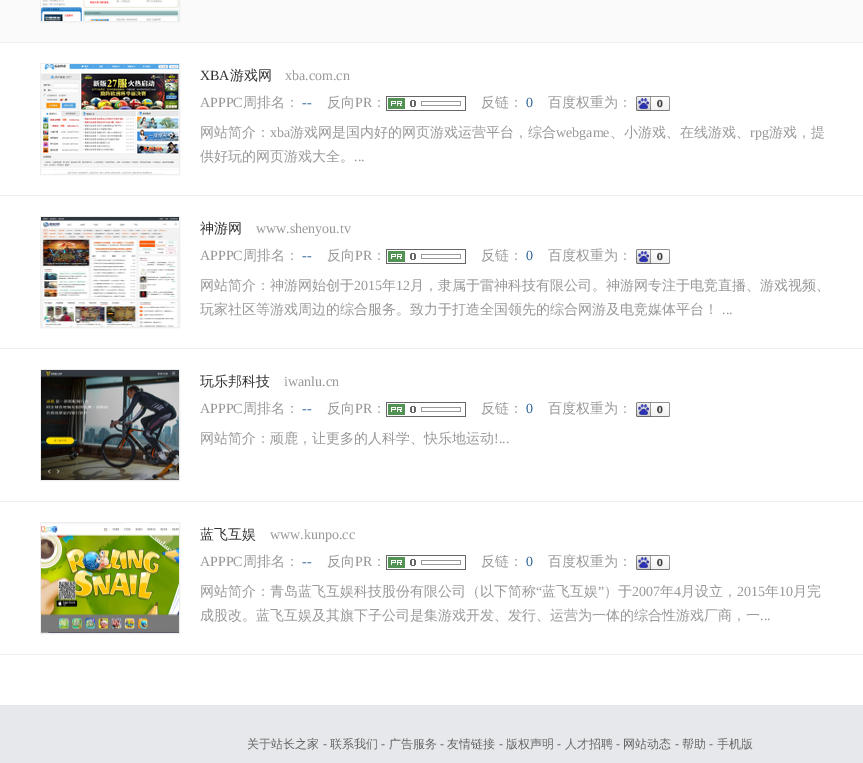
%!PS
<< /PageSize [863 763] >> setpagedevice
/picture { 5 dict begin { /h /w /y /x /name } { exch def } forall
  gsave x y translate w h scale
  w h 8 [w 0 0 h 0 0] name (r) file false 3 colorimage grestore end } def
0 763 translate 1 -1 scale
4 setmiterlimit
0.906 0.91 0.922 setrgbcolor
0 0 863 763 rectfill
1 setgray
0 43 863 662 rectfill
0.984 0.98 0.98 setrgbcolor
0 0 863 42 rectfill
0.933 setgray
0 42 863 1 rectfill
40.5 -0.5 139 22 rectstroke
(img1.rgb) 41 0 138 21 picture
0 195 863 1 rectfill
40.5 63.5 139 111 rectstroke
(img2.rgb) 41 64 138 110 picture
/LiberationSerif-Regular [14 0 0 -14 0 0] selectfont
0.2 setgray
200 80 moveto (XBA) show
/WenQuanYiZenHei-Medium [14 0 0 -14 0 0] selectfont
230 80 moveto (游戏网) show
/LiberationSerif-Regular [14 0 0 -14 0 0] selectfont
0.6 setgray
285 80 moveto (xba.com.cn) show
200 107 moveto (APPPC) show
/WenQuanYiZenHei-Medium [14 0 0 -14 0 0] selectfont
243 107 moveto (周排名：) show
/LiberationSerif-Regular [14 0 0 -14 0 0] selectfont
0.2 0.4 0.6 setrgbcolor
302 107 moveto (--) show
/WenQuanYiZenHei-Medium [14 0 0 -14 0 0] selectfont
0.6 setgray
327 107 moveto (反向) show
/LiberationSerif-Regular [14 0 0 -14 0 0] selectfont
355 107 moveto (PR) show
/WenQuanYiZenHei-Medium [14 0 0 -14 0 0] selectfont
372 107 moveto (：) show
(img3.rgb) 386 96 80 15 picture
481 107 moveto (反链：) show
/LiberationSerif-Regular [14 0 0 -14 0 0] selectfont
0.2 0.4 0.6 setrgbcolor
526 107 moveto (0) show
/WenQuanYiZenHei-Medium [14 0 0 -14 0 0] selectfont
0.6 setgray
548 107 moveto (百度权重为：) show
(img4.rgb) 636 96 34 15 picture
200 137 moveto (网站简介：) show
/LiberationSerif-Regular [14 0 0 -14 0 0] selectfont
270 137 moveto (xba) show
/WenQuanYiZenHei-Medium [14 0 0 -14 0 0] selectfont
290 137 moveto (游戏网是国内好的网页游戏运营平台，综合) show
/LiberationSerif-Regular [14 0 0 -14 0 0] selectfont
556 137 moveto (webgame) show
/WenQuanYiZenHei-Medium [14 0 0 -14 0 0] selectfont
610 137 moveto (、小游戏、在线游戏、) show
/LiberationSerif-Regular [14 0 0 -14 0 0] selectfont
750 137 moveto (rpg) show
/WenQuanYiZenHei-Medium [14 0 0 -14 0 0] selectfont
769 137 moveto (游戏，提) show
200 161 moveto (供好玩的网页游戏大全。) show
/LiberationSerif-Regular [14 0 0 -14 0 0] selectfont
354 161 moveto (...) show
0.933 setgray
0 348 863 1 rectfill
40.5 216.5 139 111 rectstroke
(img5.rgb) 41 217 138 110 picture
/WenQuanYiZenHei-Medium [14 0 0 -14 0 0] selectfont
0.2 setgray
200 233 moveto (神游网) show
/LiberationSerif-Regular [14 0 0 -14 0 0] selectfont
0.6 setgray
256 233 moveto (www.shenyou.tv) show
200 260 moveto (APPPC) show
/WenQuanYiZenHei-Medium [14 0 0 -14 0 0] selectfont
243 260 moveto (周排名：) show
/LiberationSerif-Regular [14 0 0 -14 0 0] selectfont
0.2 0.4 0.6 setrgbcolor
302 260 moveto (--) show
/WenQuanYiZenHei-Medium [14 0 0 -14 0 0] selectfont
0.6 setgray
327 260 moveto (反向) show
/LiberationSerif-Regular [14 0 0 -14 0 0] selectfont
355 260 moveto (PR) show
/WenQuanYiZenHei-Medium [14 0 0 -14 0 0] selectfont
372 260 moveto (：) show
(img3.rgb) 386 249 80 15 picture
481 260 moveto (反链：) show
/LiberationSerif-Regular [14 0 0 -14 0 0] selectfont
0.2 0.4 0.6 setrgbcolor
526 260 moveto (0) show
/WenQuanYiZenHei-Medium [14 0 0 -14 0 0] selectfont
0.6 setgray
548 260 moveto (百度权重为：) show
(img4.rgb) 636 249 34 15 picture
200 290 moveto (网站简介：神游网始创于) show
/LiberationSerif-Regular [14 0 0 -14 0 0] selectfont
354 290 moveto (2015) show
/WenQuanYiZenHei-Medium [14 0 0 -14 0 0] selectfont
382 290 moveto (年) show
/LiberationSerif-Regular [14 0 0 -14 0 0] selectfont
396 290 moveto (12) show
/WenQuanYiZenHei-Medium [14 0 0 -14 0 0] selectfont
410 290 moveto (月，隶属于雷神科技有限公司。神游网专注于电竞直播、游戏视频、) show
200 314 moveto (玩家社区等游戏周边的综合服务。致力于打造全国领先的综合网游及电竞媒体平台！) show
/LiberationSerif-Regular [14 0 0 -14 0 0] selectfont
722 314 moveto (...) show
0.933 setgray
0 501 863 1 rectfill
40.5 369.5 139 111 rectstroke
(img6.rgb) 41 370 138 110 picture
/WenQuanYiZenHei-Medium [14 0 0 -14 0 0] selectfont
0.2 setgray
200 386 moveto (玩乐邦科技) show
/LiberationSerif-Regular [14 0 0 -14 0 0] selectfont
0.6 setgray
284 386 moveto (iwanlu.cn) show
200 413 moveto (APPPC) show
/WenQuanYiZenHei-Medium [14 0 0 -14 0 0] selectfont
243 413 moveto (周排名：) show
/LiberationSerif-Regular [14 0 0 -14 0 0] selectfont
0.2 0.4 0.6 setrgbcolor
302 413 moveto (--) show
/WenQuanYiZenHei-Medium [14 0 0 -14 0 0] selectfont
0.6 setgray
327 413 moveto (反向) show
/LiberationSerif-Regular [14 0 0 -14 0 0] selectfont
355 413 moveto (PR) show
/WenQuanYiZenHei-Medium [14 0 0 -14 0 0] selectfont
372 413 moveto (：) show
(img3.rgb) 386 402 80 15 picture
481 413 moveto (反链：) show
/LiberationSerif-Regular [14 0 0 -14 0 0] selectfont
0.2 0.4 0.6 setrgbcolor
526 413 moveto (0) show
/WenQuanYiZenHei-Medium [14 0 0 -14 0 0] selectfont
0.6 setgray
548 413 moveto (百度权重为：) show
(img4.rgb) 636 402 34 15 picture
200 443 moveto (网站简介：顽鹿，让更多的人科学、快乐地运动) show
/LiberationSerif-Regular [14 0 0 -14 0 0] selectfont
494 443 moveto (!...) show
0.933 setgray
0 654 863 1 rectfill
40.5 522.5 139 111 rectstroke
(img7.rgb) 41 523 138 110 picture
/WenQuanYiZenHei-Medium [14 0 0 -14 0 0] selectfont
0.2 setgray
200 539 moveto (蓝飞互娱) show
/LiberationSerif-Regular [14 0 0 -14 0 0] selectfont
0.6 setgray
270 539 moveto (www.kunpo.cc) show
200 566 moveto (APPPC) show
/WenQuanYiZenHei-Medium [14 0 0 -14 0 0] selectfont
243 566 moveto (周排名：) show
/LiberationSerif-Regular [14 0 0 -14 0 0] selectfont
0.2 0.4 0.6 setrgbcolor
302 566 moveto (--) show
/WenQuanYiZenHei-Medium [14 0 0 -14 0 0] selectfont
0.6 setgray
327 566 moveto (反向) show
/LiberationSerif-Regular [14 0 0 -14 0 0] selectfont
355 566 moveto (PR) show
/WenQuanYiZenHei-Medium [14 0 0 -14 0 0] selectfont
372 566 moveto (：) show
(img3.rgb) 386 555 80 15 picture
481 566 moveto (反链：) show
/LiberationSerif-Regular [14 0 0 -14 0 0] selectfont
0.2 0.4 0.6 setrgbcolor
526 566 moveto (0) show
/WenQuanYiZenHei-Medium [14 0 0 -14 0 0] selectfont
0.6 setgray
548 566 moveto (百度权重为：) show
(img4.rgb) 636 555 34 15 picture
200 596 moveto (网站简介：青岛蓝飞互娱科技股份有限公司（以下简称) show
/LiberationSerif-Regular [14 0 0 -14 0 0] selectfont
536 596 moveto (“) show
/WenQuanYiZenHei-Medium [14 0 0 -14 0 0] selectfont
542 596 moveto (蓝飞互娱) show
/LiberationSerif-Regular [14 0 0 -14 0 0] selectfont
598 596 moveto (”) show
/WenQuanYiZenHei-Medium [14 0 0 -14 0 0] selectfont
604 596 moveto (）于) show
/LiberationSerif-Regular [14 0 0 -14 0 0] selectfont
632 596 moveto (2007) show
/WenQuanYiZenHei-Medium [14 0 0 -14 0 0] selectfont
660 596 moveto (年) show
/LiberationSerif-Regular [14 0 0 -14 0 0] selectfont
674 596 moveto (4) show
/WenQuanYiZenHei-Medium [14 0 0 -14 0 0] selectfont
681 596 moveto (月设立，) show
/LiberationSerif-Regular [14 0 0 -14 0 0] selectfont
737 596 moveto (2015) show
/WenQuanYiZenHei-Medium [14 0 0 -14 0 0] selectfont
765 596 moveto (年) show
/LiberationSerif-Regular [14 0 0 -14 0 0] selectfont
779 596 moveto (10) show
/WenQuanYiZenHei-Medium [14 0 0 -14 0 0] selectfont
793 596 moveto (月完) show
200 620 moveto (成股改。蓝飞互娱及其旗下子公司是集游戏开发、发行、运营为一体的综合性游戏厂商，一) show
/LiberationSerif-Regular [14 0 0 -14 0 0] selectfont
760 620 moveto (...) show
/WenQuanYiZenHei-Medium [12 0 0 -12 0 0] selectfont
0.4 setgray
247 748 moveto (关于站长之家) show
/LiberationSans-Regular [12 0 0 -12 0 0] selectfont
323 748 moveto (-) show
/WenQuanYiZenHei-Medium [12 0 0 -12 0 0] selectfont
330 748 moveto (联系我们) show
/LiberationSans-Regular [12 0 0 -12 0 0] selectfont
381 748 moveto (-) show
/WenQuanYiZenHei-Medium [12 0 0 -12 0 0] selectfont
389 748 moveto (广告服务) show
/LiberationSans-Regular [12 0 0 -12 0 0] selectfont
440 748 moveto (-) show
/WenQuanYiZenHei-Medium [12 0 0 -12 0 0] selectfont
447 748 moveto (友情链接) show
/LiberationSans-Regular [12 0 0 -12 0 0] selectfont
499 748 moveto (-) show
/WenQuanYiZenHei-Medium [12 0 0 -12 0 0] selectfont
506 748 moveto (版权声明) show
/LiberationSans-Regular [12 0 0 -12 0 0] selectfont
557 748 moveto (-) show
/WenQuanYiZenHei-Medium [12 0 0 -12 0 0] selectfont
565 748 moveto (人才招聘) show
/LiberationSans-Regular [12 0 0 -12 0 0] selectfont
616 748 moveto (-) show
/WenQuanYiZenHei-Medium [12 0 0 -12 0 0] selectfont
623 748 moveto (网站动态) show
/LiberationSans-Regular [12 0 0 -12 0 0] selectfont
675 748 moveto (-) show
/WenQuanYiZenHei-Medium [12 0 0 -12 0 0] selectfont
682 748 moveto (帮助) show
/LiberationSans-Regular [12 0 0 -12 0 0] selectfont
709 748 moveto (-) show
/WenQuanYiZenHei-Medium [12 0 0 -12 0 0] selectfont
717 748 moveto (手机版) show
showpage
